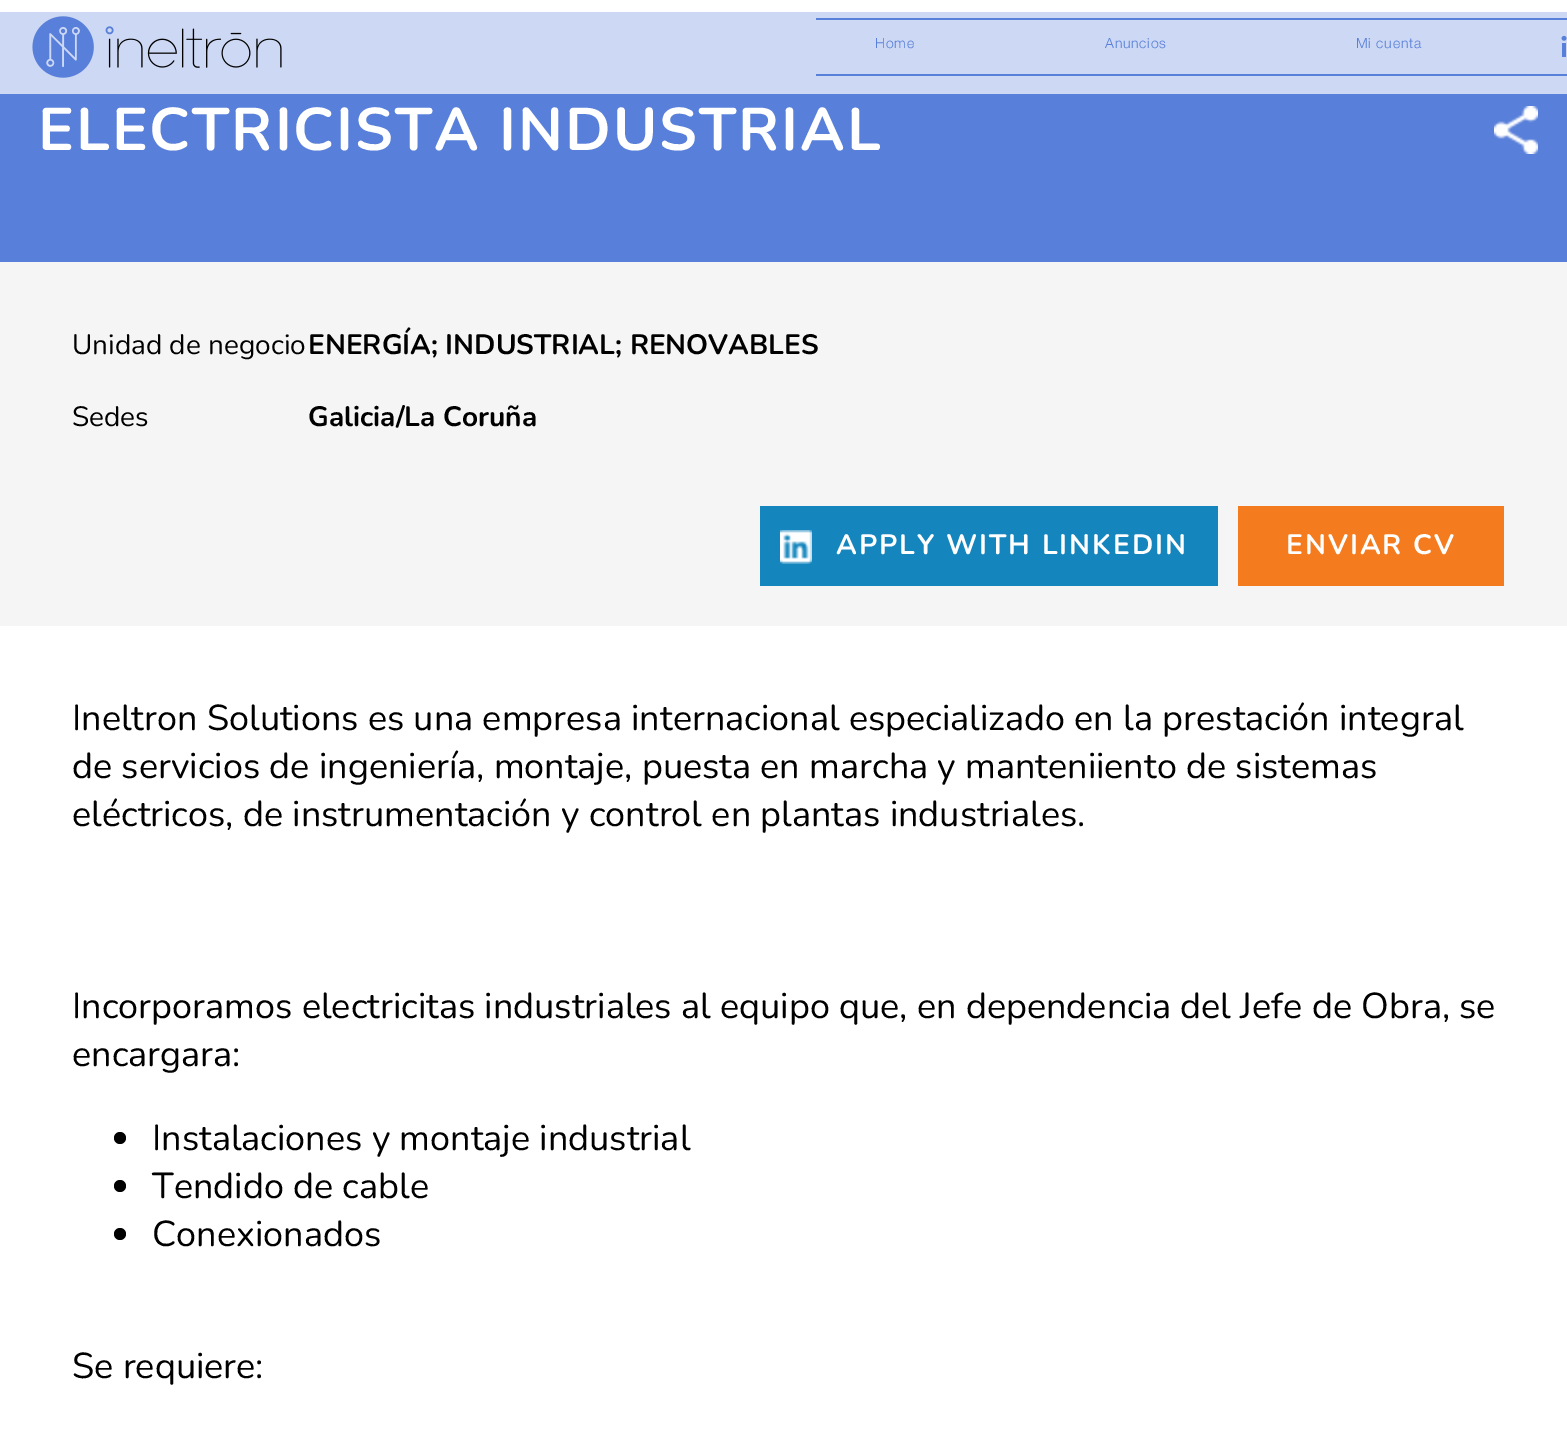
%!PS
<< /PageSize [1567 1441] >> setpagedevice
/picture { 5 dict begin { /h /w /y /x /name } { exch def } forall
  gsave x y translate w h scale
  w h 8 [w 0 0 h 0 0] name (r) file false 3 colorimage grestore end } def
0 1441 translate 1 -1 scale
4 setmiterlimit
1 setgray
0 0 1567 1441 rectfill
0.804 0.851 0.957 setrgbcolor
0 12 1567 82 rectfill
(img1.rgb) 32 16 250 62 picture
0.345 0.498 0.851 setrgbcolor
816 18 751 2 rectfill
816 74 751 2 rectfill
/HelveticaNeue-Light [14 0 0 -14 0 0] selectfont
875 48 moveto 0.75 0 (Home) ashow
1105 48 moveto 0.75 0 (Anuncios) ashow
1356 48 moveto 0.75 0 (Mi cuenta) ashow
(img2.rgb) 1561 35 6 22 picture
0 94 1567 168 rectfill
/Nunito-Bold [60 0 0 -60 0 0] selectfont
1 setgray
38 150 moveto 2 0 (ELECTRICISTA INDUSTRIAL) ashow
(img3.rgb) 1494 106 44 48 picture
0.961 setgray
0 262 1567 364 rectfill
/Nunito-Regular [28 0 0 -28 0 0] selectfont
0 setgray
72 354 moveto (Unidad de negocio) show
/Nunito-Bold [28 0 0 -28 0 0] selectfont
308 354 moveto (ENERGÍA; INDUSTRIAL; RENOVABLES) show
/Nunito-Regular [28 0 0 -28 0 0] selectfont
72 426 moveto (Sedes) show
/Nunito-Bold [28 0 0 -28 0 0] selectfont
308 426 moveto (Galicia/La Coruña) show
0.078 0.522 0.741 setrgbcolor
760 506 458 80 rectfill
(img4.rgb) 780 530 32 34 picture
1 setgray
836 554 moveto 2 0 (APPLY WITH LINKEDIN) ashow
0.957 0.482 0.118 setrgbcolor
1238 506 266 80 rectfill
1 setgray
1286 554 moveto 2 0 (ENVIAR CV) ashow
/Nunito-Regular [36 0 0 -36 0 0] selectfont
0 setgray
72 730 moveto (Ineltron Solutions es una empresa internacional especializado en la prestación integral) show
72 778 moveto (de servicios de ingeniería, montaje, puesta en marcha y manteniiento de sistemas) show
72 826 moveto (eléctricos, de instrumentación y control en plantas industriales.) show
72 1018 moveto (Incorporamos electricitas industriales al equipo que, en dependencia del Jefe de Obra, se) show
72 1066 moveto (encargara:) show
newpath 120 1138 6 0 360 arc closepath fill
152 1150 moveto (Instalaciones y montaje industrial) show
newpath 120 1186 6 0 360 arc closepath fill
152 1198 moveto (Tendido de cable) show
newpath 120 1234 6 0 360 arc closepath fill
152 1246 moveto (Conexionados) show
72 1378 moveto (Se requiere:) show
showpage
